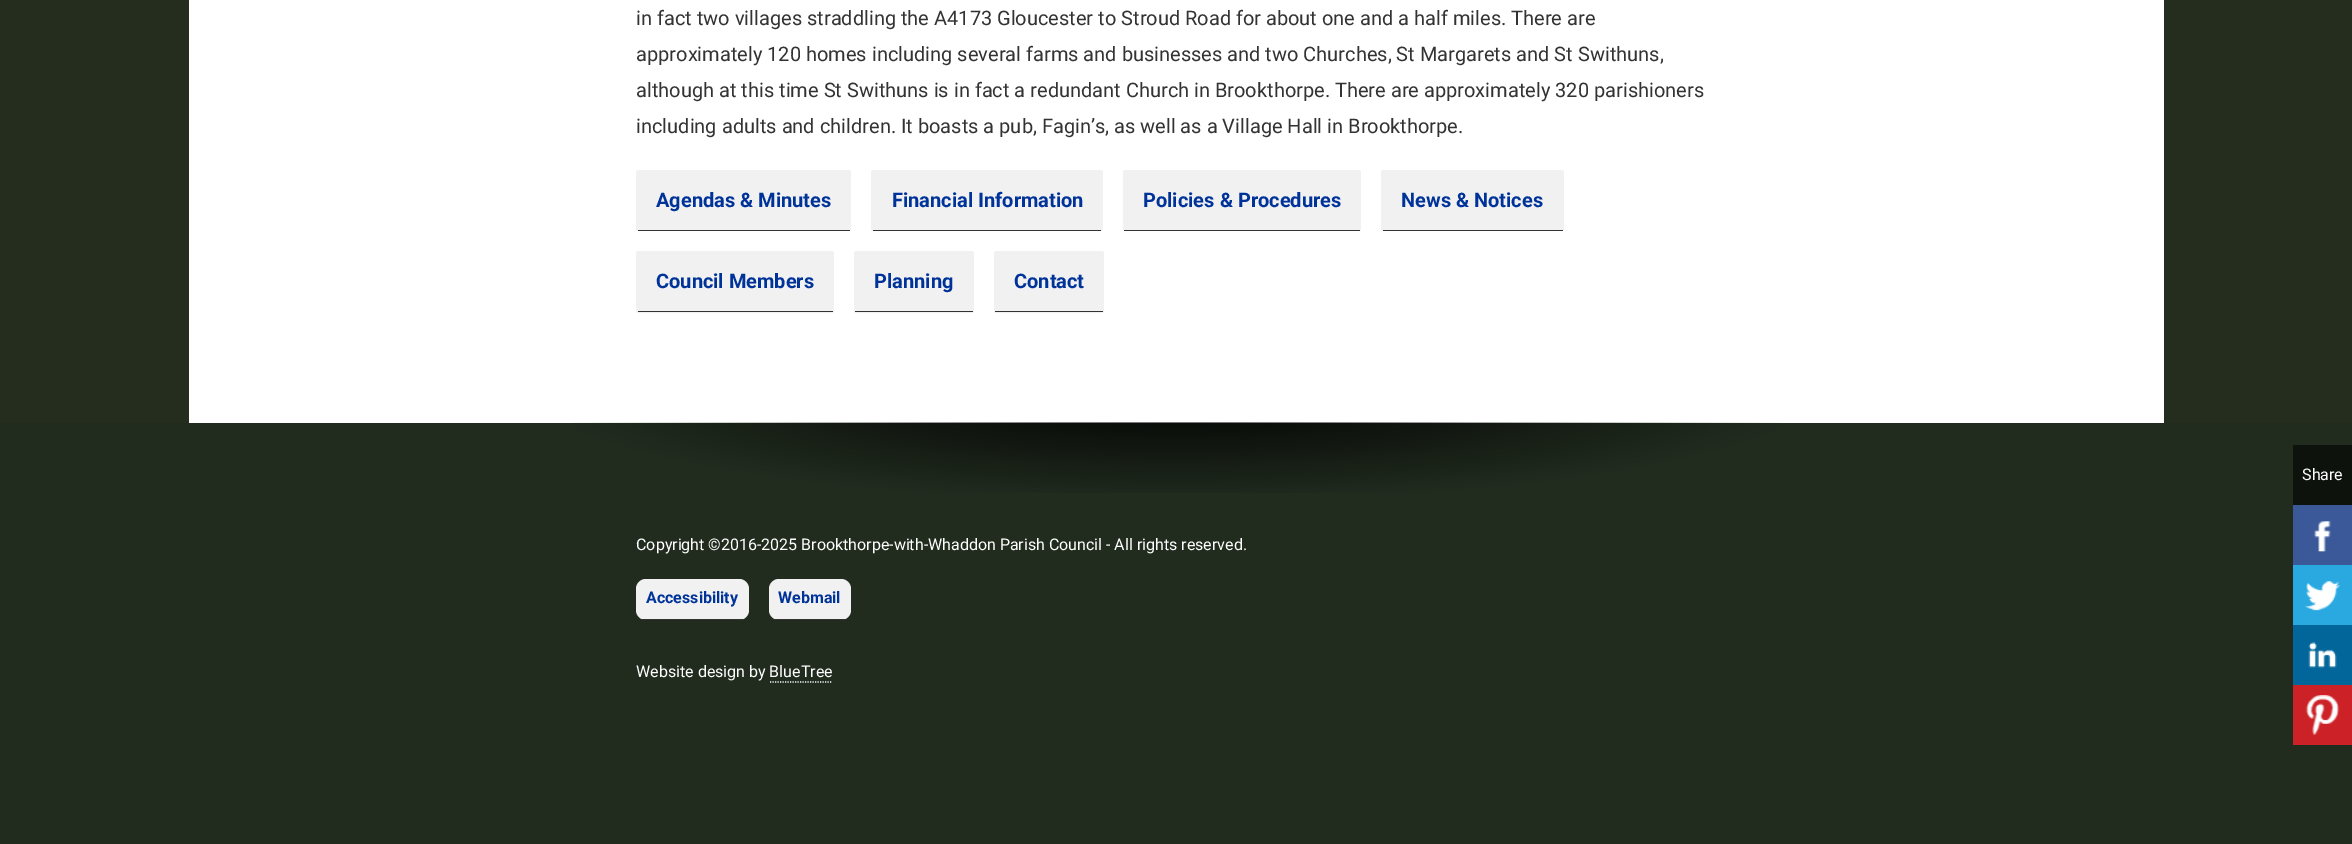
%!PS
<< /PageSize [2352 844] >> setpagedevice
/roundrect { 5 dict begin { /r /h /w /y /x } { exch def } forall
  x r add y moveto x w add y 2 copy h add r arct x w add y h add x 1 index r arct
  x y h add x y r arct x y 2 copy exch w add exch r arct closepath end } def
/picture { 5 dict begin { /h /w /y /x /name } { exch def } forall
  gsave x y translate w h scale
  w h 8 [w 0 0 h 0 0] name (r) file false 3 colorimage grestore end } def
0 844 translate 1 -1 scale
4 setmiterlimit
0.129 0.173 0.122 setrgbcolor
0 0 2352 844 rectfill
0.145 0.176 0.118 setrgbcolor
0 0 2352 423 rectfill
1 setgray
189 0 1975 423 rectfill
/Roboto-Regular [20 0 0 -20 0 0] selectfont
0.2 setgray
636 25 moveto (in fact two villages straddling the A4173 Gloucester to Stroud Road for about one and a half miles. There are) show
636 61 moveto (approximately 120 homes including several farms and businesses and two Churches, St Margarets and St Swithuns,) show
636 97 moveto (although at this time St Swithuns is in fact a redundant Church in Brookthorpe. There are approximately 320 parishioners) show
636 133 moveto (including adults and children. It boasts a pub, Fagin’s, as well as a Village Hall in Brookthorpe.) show
0.945 setgray
636 170 215 61 2.5 roundrect fill
0.2 setgray
638 230 212 1 rectfill
/Roboto-Bold [20 0 0 -20 0 0] selectfont
0 0.2 0.6 setrgbcolor
656 207 moveto (Agendas & Minutes) show
0.945 setgray
871 170 232 61 2.5 roundrect fill
0.2 setgray
873 230 228 1 rectfill
0 0.2 0.6 setrgbcolor
892 207 moveto (Financial Information) show
0.945 setgray
1123 170 238 61 2.5 roundrect fill
0.2 setgray
1124 230 236 1 rectfill
0 0.2 0.6 setrgbcolor
1143 207 moveto (Policies & Procedures) show
0.945 setgray
1381 170 183 61 2.5 roundrect fill
0.2 setgray
1383 230 180 1 rectfill
0 0.2 0.6 setrgbcolor
1401 207 moveto (News & Notices) show
0.945 setgray
636 251 198 62 2.5 roundrect fill
0.2 setgray
638 311 195 1 rectfill
0 0.2 0.6 setrgbcolor
656 288 moveto (Council Members) show
0.945 setgray
854 251 120 62 2.5 roundrect fill
0.2 setgray
855 311 118 1 rectfill
0 0.2 0.6 setrgbcolor
874 288 moveto (Planning) show
0.945 setgray
994 251 110 62 2.5 roundrect fill
0.2 setgray
995 311 108 1 rectfill
0 0.2 0.6 setrgbcolor
1014 288 moveto (Contact) show
(img1.rgb) 572 422 1210 71 picture
0.051 0.071 0.047 setrgbcolor
2293 445 59 60 rectfill
/Roboto-Regular [16 0 0 -16 0 0] selectfont
1 setgray
2302 480 moveto (Share) show
0.231 0.349 0.596 setrgbcolor
2293 505 59 60 rectfill
(img2.rgb) 2314 521 17 31 picture
0.165 0.663 0.878 setrgbcolor
2293 565 59 60 rectfill
(img3.rgb) 2305 581 36 30 picture
0.008 0.4 0.604 setrgbcolor
2293 625 59 60 rectfill
(img4.rgb) 2308 642 29 26 picture
0.8 0.129 0.153 setrgbcolor
2293 685 59 60 rectfill
(img5.rgb) 2305 695 35 40 picture
1 setgray
636 550 moveto (Copyright ©2016-2025 Brookthorpe-with-Whaddon Parish Council - All rights reserved.) show
0.945 setgray
636 579 113 41 10 roundrect fill
0.2 setgray
641 619 103 1 rectfill
/Roboto-Bold [16 0 0 -16 0 0] selectfont
0 0.2 0.6 setrgbcolor
646 603 moveto (Accessibility) show
0.945 setgray
769 579 82 41 10 roundrect fill
0.2 setgray
774 619 72 1 rectfill
0 0.2 0.6 setrgbcolor
778 603 moveto (Webmail) show
/Roboto-Regular [16 0 0 -16 0 0] selectfont
1 setgray
636 677 moveto (Website design by BlueTree) show
1.2 setlinewidth
[1.25 1.25] 0 setdash
newpath 770 682 moveto 832.5 682 lineto stroke
showpage
